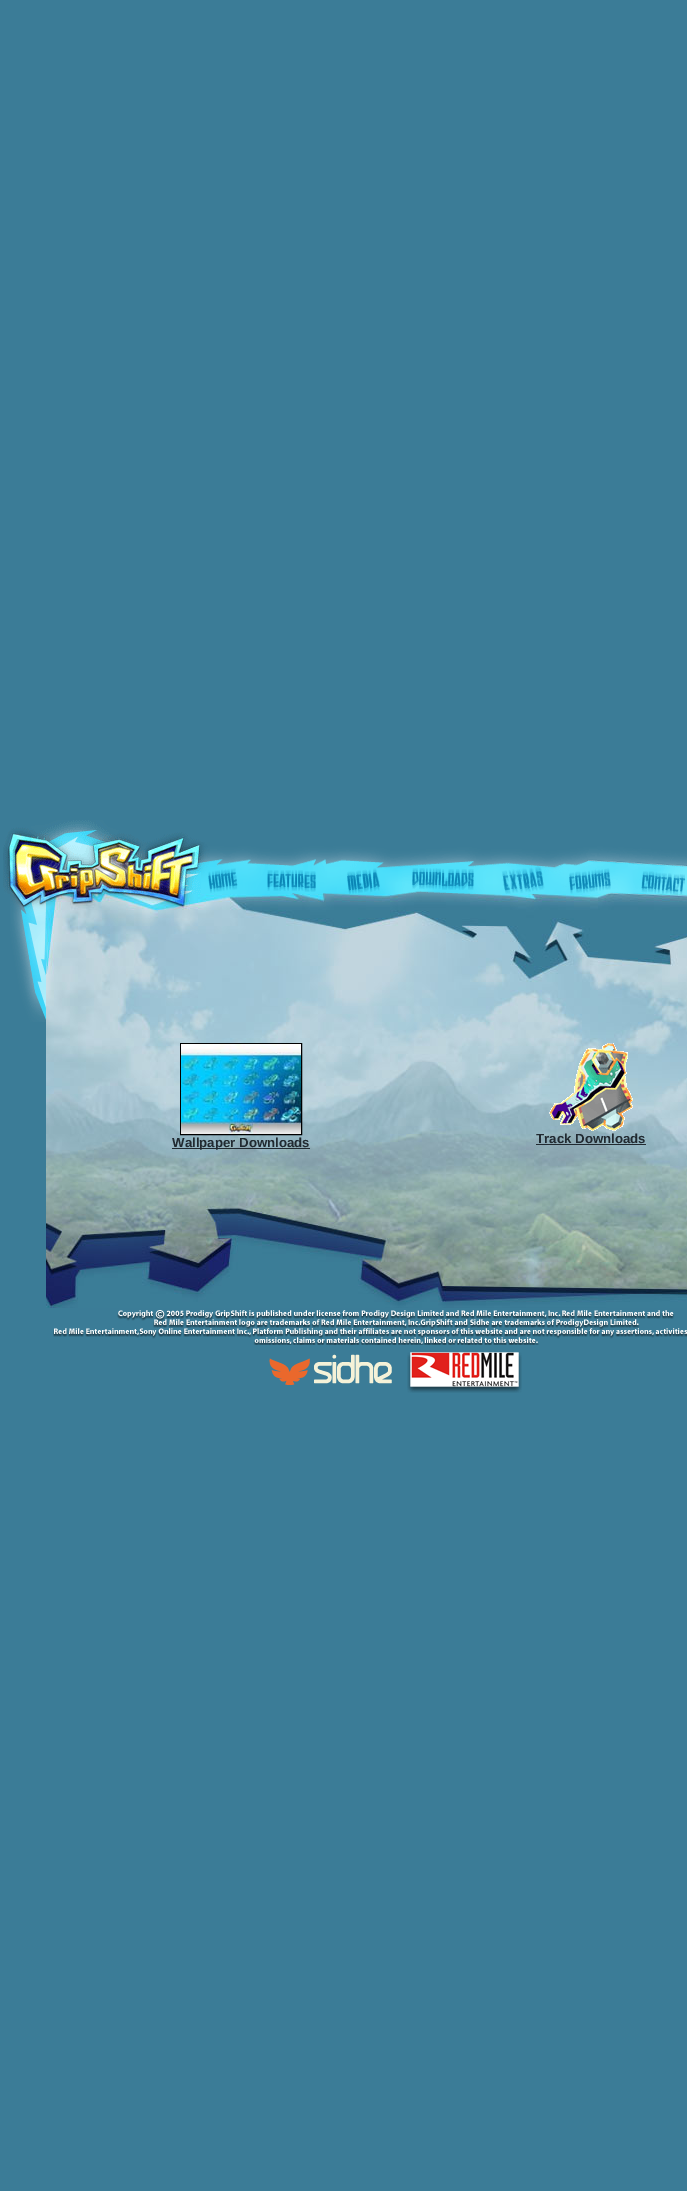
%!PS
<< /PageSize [687 2191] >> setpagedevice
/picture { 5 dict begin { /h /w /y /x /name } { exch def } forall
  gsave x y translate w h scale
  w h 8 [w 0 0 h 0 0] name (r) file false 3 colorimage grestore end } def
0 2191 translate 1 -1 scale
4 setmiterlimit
0.231 0.486 0.592 setrgbcolor
0 0 687 2191 rectfill
(img1.rgb) 3 820 198 74 picture
(img2.rgb) 201 842 486 25 picture
(img3.rgb) 201 867 40 27 picture
(img4.rgb) 241 867 15 27 picture
(img5.rgb) 256 867 69 27 picture
(img6.rgb) 325 867 15 27 picture
(img7.rgb) 340 867 46 27 picture
(img8.rgb) 386 867 15 27 picture
(img9.rgb) 401 867 85 27 picture
(img10.rgb) 486 867 14 27 picture
(img11.rgb) 500 867 46 27 picture
(img12.rgb) 546 867 15 27 picture
(img13.rgb) 561 867 57 27 picture
(img14.rgb) 618 867 15 27 picture
(img15.rgb) 633 867 54 27 picture
(img16.rgb) 10 894 36 128 picture
(img17.rgb) 46 894 641 414 picture
0 setgray
180.5 1043.5 121 91 rectstroke
(img18.rgb) 181 1044 120 90 picture
0.129 0.165 0.192 setrgbcolor
172 1148 138 1 rectfill
/LiberationSans-Bold [13.25 0 0 -13.25 0 0] selectfont
172 1147 moveto (Wallpaper Downloads) show
(img19.rgb) 549 1043 84 88 picture
536 1143 moveto (Track Downloads) show
536 1144 110 1 rectfill
(img20.rgb) 53 1310 634 35 picture
(img21.rgb) 269 1354 123 31 picture
(img22.rgb) 407 1352 115 41 picture
showpage
